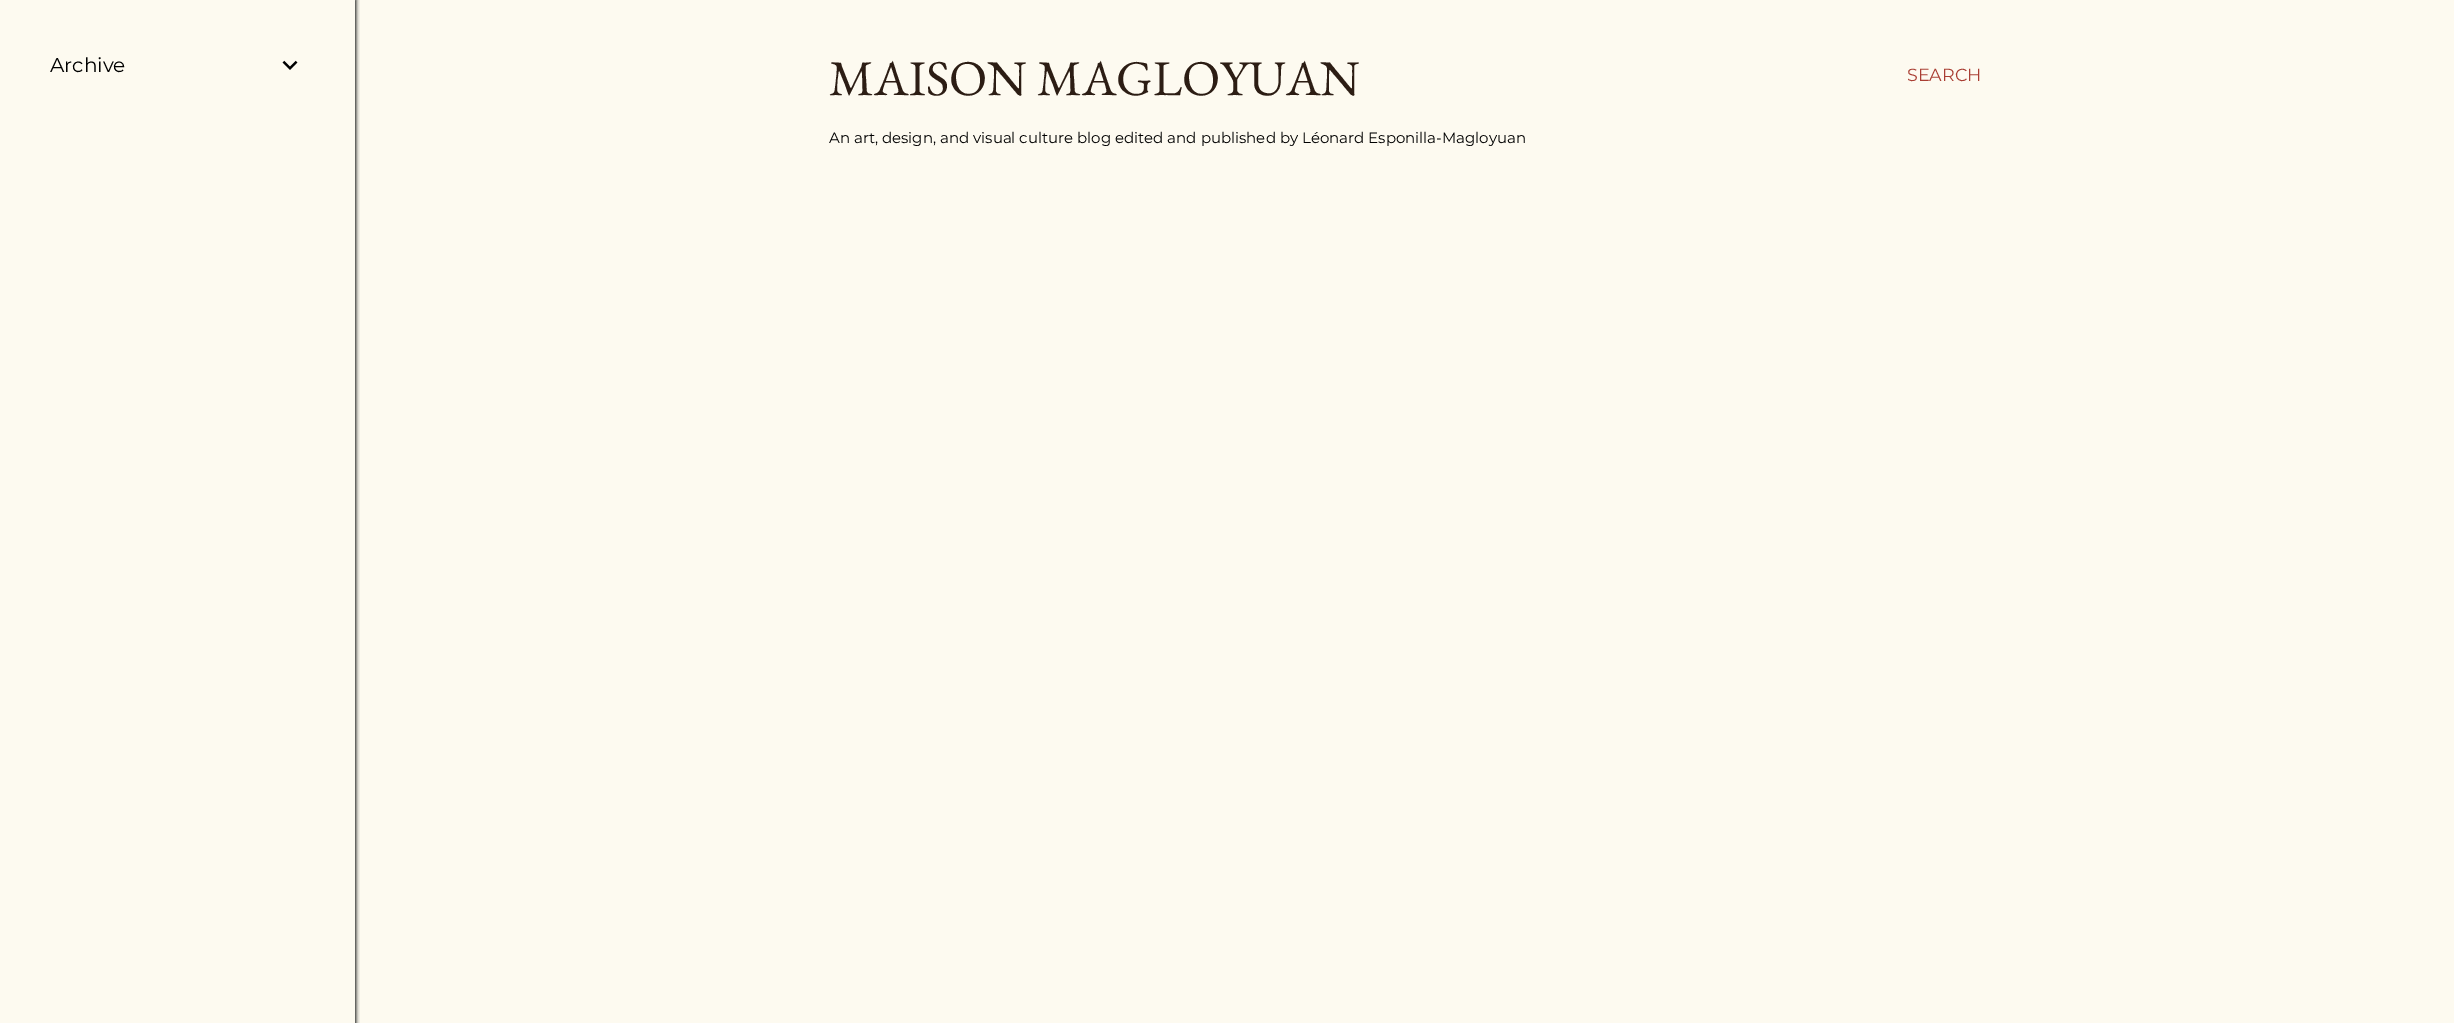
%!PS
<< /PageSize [2454 1023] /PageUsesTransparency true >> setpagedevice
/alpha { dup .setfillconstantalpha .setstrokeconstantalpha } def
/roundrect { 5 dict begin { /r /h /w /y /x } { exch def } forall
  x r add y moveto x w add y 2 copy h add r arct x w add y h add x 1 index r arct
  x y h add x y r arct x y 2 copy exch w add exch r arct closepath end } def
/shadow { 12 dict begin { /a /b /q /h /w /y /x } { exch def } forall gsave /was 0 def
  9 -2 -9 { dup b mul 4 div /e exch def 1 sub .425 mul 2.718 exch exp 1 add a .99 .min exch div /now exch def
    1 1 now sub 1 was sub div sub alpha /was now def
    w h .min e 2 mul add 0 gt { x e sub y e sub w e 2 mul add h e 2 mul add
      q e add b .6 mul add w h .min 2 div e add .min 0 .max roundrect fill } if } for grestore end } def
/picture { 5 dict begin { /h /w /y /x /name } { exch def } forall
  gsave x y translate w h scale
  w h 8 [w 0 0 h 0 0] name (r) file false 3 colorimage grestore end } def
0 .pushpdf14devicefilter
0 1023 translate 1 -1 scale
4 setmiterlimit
0.992 0.98 0.941 setrgbcolor
0 0 2454 1023 rectfill
gsave
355 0 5 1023 rectclip
0 setgray
1 0 355 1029 0 2 1 shadow
grestore
/Montserrat-Regular [20 0 0 -20 0 0] selectfont
0 setgray
50 72 moveto (Archive) show
(img1.rgb) 282 60 16 10 picture
/EBGaramond-Regular [50 0 0 -50 0 0] selectfont
0.173 0.114 0.078 setrgbcolor
829 95 moveto (MAISON MAGLOYUAN) show
/Montserrat-Regular [15 0 0 -15 0 0] selectfont
0 setgray
829 143 moveto (An art, design, and visual culture blog edited and published by Léonard Esponilla-Magloyuan) show
/Montserrat-Regular [17.5 0 0 -17.5 0 0] selectfont
0.663 0.243 0.2 setrgbcolor
1907 81 moveto (SEARCH) show
.poppdf14devicefilter showpage
